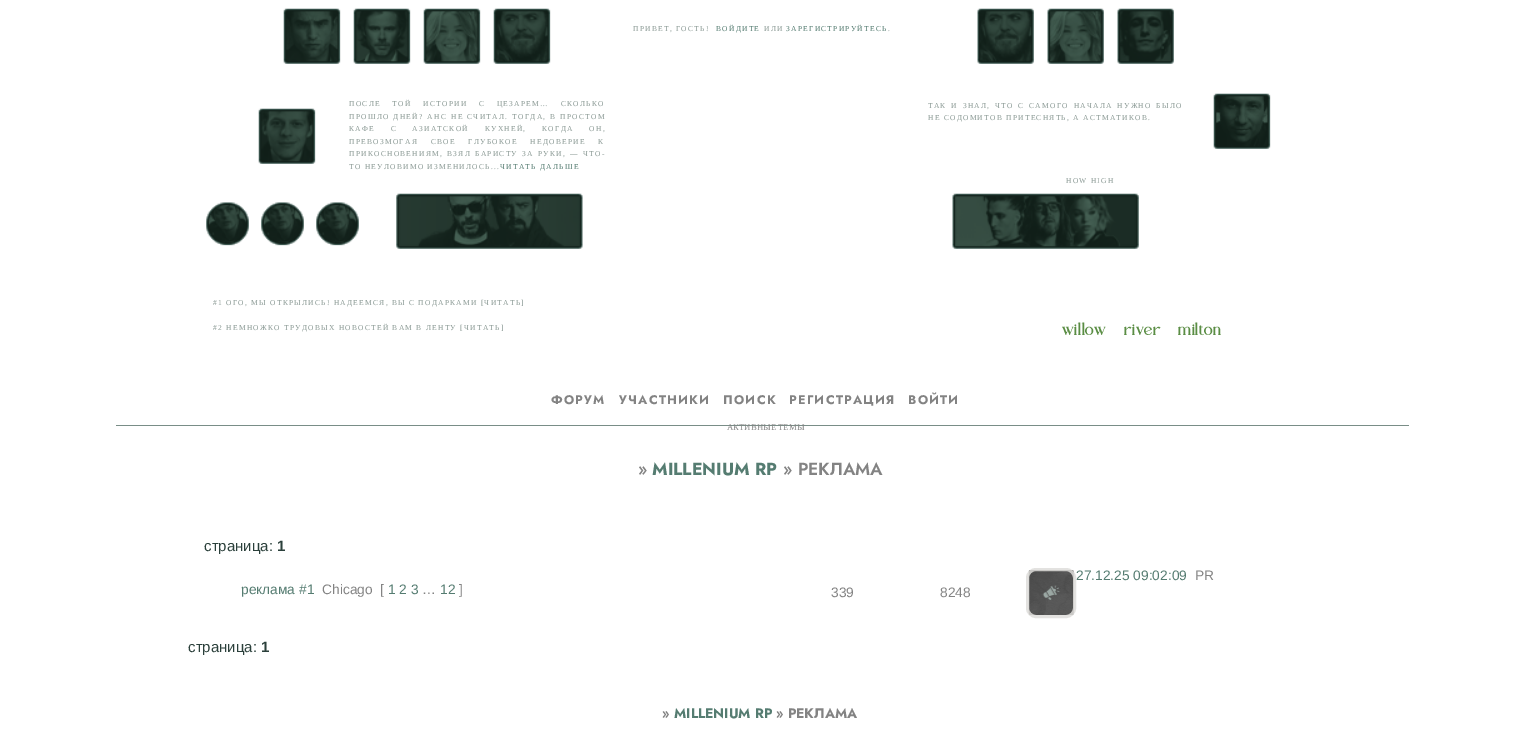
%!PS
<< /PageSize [1525 742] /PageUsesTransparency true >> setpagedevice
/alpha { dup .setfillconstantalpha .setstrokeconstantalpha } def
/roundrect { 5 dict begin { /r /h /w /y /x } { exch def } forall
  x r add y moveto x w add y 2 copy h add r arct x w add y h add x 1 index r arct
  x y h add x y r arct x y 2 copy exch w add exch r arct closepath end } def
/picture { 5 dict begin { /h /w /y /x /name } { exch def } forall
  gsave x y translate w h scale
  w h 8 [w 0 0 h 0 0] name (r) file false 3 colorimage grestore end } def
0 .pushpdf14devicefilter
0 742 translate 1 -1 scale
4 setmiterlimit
1 setgray
0 0 1525 742 rectfill
0.475 0.553 0.529 setrgbcolor
116 425 1293 1 rectfill
/LiberationSerif-Regular [7.5 0 0 -7.5 0 0] selectfont
0.541 0.6 0.58 setrgbcolor
633 31 moveto 1.25 0 (ПРИВЕТ, ГОСТЬ!) ashow
0.333 0.486 0.443 setrgbcolor
716 31 moveto 1.25 0 (ВОЙДИТЕ) ashow
0.541 0.6 0.58 setrgbcolor
764 31 moveto 1.25 0 (ИЛИ) ashow
0.333 0.486 0.443 setrgbcolor
786 31 moveto 1.25 0 (ЗАРЕГИСТРИРУЙТЕСЬ) ashow
0.541 0.6 0.58 setrgbcolor
888 31 moveto 1.25 0 (.) ashow
(img1.rgb) 283 8 58 56 picture
(img2.rgb) 353 8 58 56 picture
(img3.rgb) 423 8 58 56 picture
(img4.rgb) 493 8 58 56 picture
(img5.rgb) 977 8 57 56 picture
(img6.rgb) 1047 8 57 56 picture
(img7.rgb) 1117 8 57 56 picture
(img8.rgb) 258 108 58 56 picture
349 106 moveto 8.5 0 32 1.25 0 (ПОСЛЕ ТОЙ ИСТОРИИ С ЦЕЗАРЕМ… СКОЛЬКО) awidthshow
349 119 moveto 0.75 0 32 1.25 0 (ПРОШЛО ДНЕЙ? АНС НЕ СЧИТАЛ. ТОГДА, В ПРОСТОМ) awidthshow
349 131 moveto 12.5 0 32 1.25 0 (КАФЕ С АЗИАТСКОЙ КУХНЕЙ, КОГДА ОН,) awidthshow
349 144 moveto 9.5 0 32 1.25 0 (ПРЕВОЗМОГАЯ СВОЕ ГЛУБОКОЕ НЕДОВЕРИЕ К) awidthshow
349 156 moveto 1 0 32 1.25 0 (ПРИКОСНОВЕНИЯМ, ВЗЯЛ БАРИСТУ ЗА РУКИ, — ЧТО-) awidthshow
349 169 moveto 1.25 0 (ТО НЕУЛОВИМО ИЗМЕНИЛОСЬ...) ashow
0.333 0.486 0.443 setrgbcolor
500 169 moveto 1.25 0 (ЧИТАТЬ ДАЛЬШЕ) ashow
0.541 0.6 0.58 setrgbcolor
928 108 moveto 1.5 0 32 1.25 0 (ТАК И ЗНАЛ, ЧТО С САМОГО НАЧАЛА НУЖНО БЫЛО) awidthshow
928 120 moveto 1.25 0 (НЕ СОДОМИТОВ ПРИТЕСНЯТЬ, А АСТМАТИКОВ.) ashow
(img9.rgb) 1213 93 58 56 picture
1066 183 moveto 1.25 0 (HOW HIGH) ashow
(img10.rgb) 206 202 43 44 picture
(img11.rgb) 261 202 43 44 picture
(img10.rgb) 316 202 43 44 picture
(img12.rgb) 396 193 187 56 picture
(img13.rgb) 952 193 187 56 picture
213 305 moveto 1.25 0 (#1 ОГО, МЫ ОТКРЫЛИСЬ! НАДЕЕМСЯ, ВЫ С ПОДАРКАМИ [ЧИТАТЬ]) ashow
213 330 moveto 1.25 0 (#2 НЕМНОЖКО ТРУДОВЫХ НОВОСТЕЙ ВАМ В ЛЕНТУ [ЧИТАТЬ]) ashow
/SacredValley-Bold [17.5 0 0 -17.5 0 0] selectfont
0.353 0.553 0.267 setrgbcolor
1062 335 moveto (willow) show
1124 335 moveto (river) show
1178 335 moveto (milton) show
/Jost-Bold [12.5 0 0 -12.5 0 0] selectfont
0.514 setgray
551 404 moveto 1.25 0 (ФОРУМ) ashow
619 404 moveto 1.25 0 (УЧАСТНИКИ) ashow
723 404 moveto 1.25 0 (ПОИСК) ashow
789 404 moveto 1.25 0 (РЕГИСТРАЦИЯ) ashow
908 404 moveto 1.25 0 (ВОЙТИ) ashow
/LiberationSerif-Regular [8.75 0 0 -8.75 0 0] selectfont
727 430 moveto (АКТИВНЫЕ ТЕМЫ) show
/Jost-SemiBold [17.5 0 0 -17.5 0 0] selectfont
638 475 moveto (») show
/Jost-Bold [17.5 0 0 -17.5 0 0] selectfont
0.333 0.486 0.443 setrgbcolor
652 475 moveto (MILLENIUM RP) show
/Jost-SemiBold [17.5 0 0 -17.5 0 0] selectfont
0.514 setgray
783 475 moveto (» РЕКЛАМА) show
/LiberationSans-Regular [15 0 0 -15 0 0] selectfont
0.169 0.251 0.231 setrgbcolor
204 551 moveto (страница:) show
/LiberationSans-Bold [15 0 0 -15 0 0] selectfont
277 551 moveto (1) show
(img14.rgb) 1028 570 46 45 picture
0.85 alpha
0.871 0.867 0.855 setrgbcolor
3 setlinewidth
1027.5 569.5 47 47 8.5 roundrect stroke
/LiberationSans-Regular [13.75 0 0 -13.75 0 0] selectfont
1 alpha
0.333 0.486 0.443 setrgbcolor
1076 580 moveto (27.12.25 09:02:09) show
0.514 setgray
1195 580 moveto (PR) show
0.333 0.486 0.443 setrgbcolor
241 594 moveto (реклама #1) show
0.514 setgray
322 594 moveto (Chicago) show
380 594 moveto ([) show
0.333 0.486 0.443 setrgbcolor
388 594 moveto (1 2 3) show
0.514 setgray
422 594 moveto (…) show
0.333 0.486 0.443 setrgbcolor
440 594 moveto (12) show
0.514 setgray
459 594 moveto (]) show
831 597 moveto (339) show
940 597 moveto (8248) show
/LiberationSans-Regular [15 0 0 -15 0 0] selectfont
0.169 0.251 0.231 setrgbcolor
188 652 moveto (страница:) show
/LiberationSans-Bold [15 0 0 -15 0 0] selectfont
261 652 moveto (1) show
/Jost-Bold [13.75 0 0 -13.75 0 0] selectfont
0.514 setgray
662 718 moveto (») show
0.333 0.486 0.443 setrgbcolor
674 718 moveto (MILLENIUM RP) show
0.514 setgray
776 718 moveto (» РЕКЛАМА) show
.poppdf14devicefilter showpage
